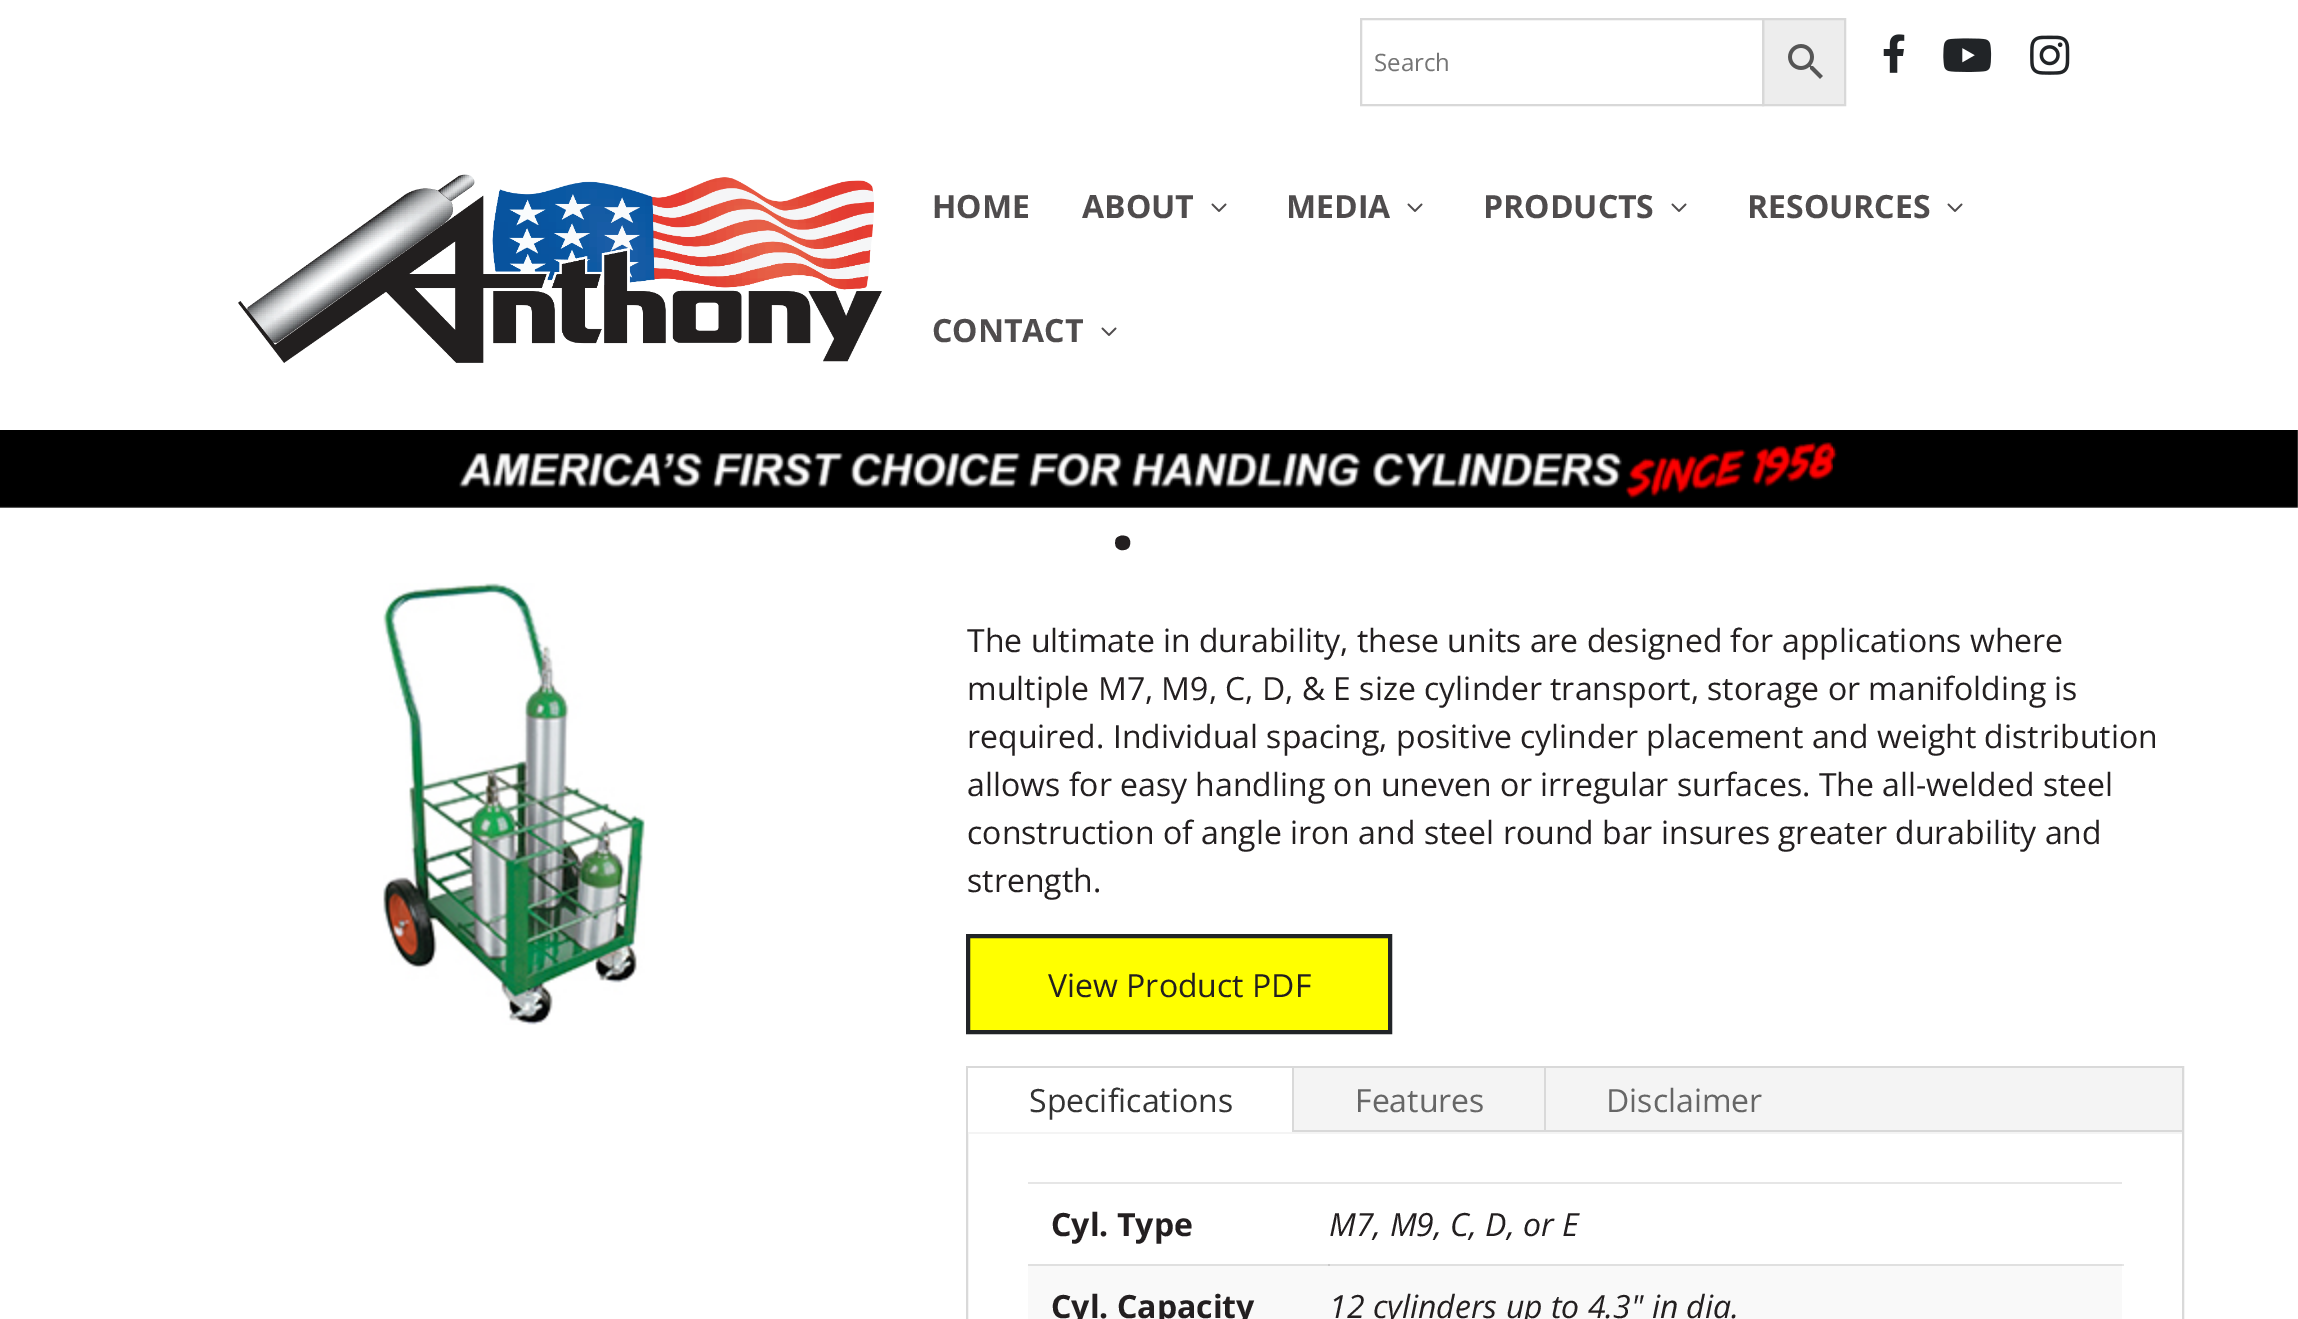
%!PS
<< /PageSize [2298 1319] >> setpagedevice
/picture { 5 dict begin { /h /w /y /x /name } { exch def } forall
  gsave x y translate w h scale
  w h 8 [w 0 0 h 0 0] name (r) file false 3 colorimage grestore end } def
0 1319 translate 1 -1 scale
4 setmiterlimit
1 setgray
0 0 2298 1319 rectfill
0.902 setgray
2122 1264 2 2 rectfill
0.929 setgray
newpath 1763 19 moveto 1845 19 lineto 1845 105 lineto 1763 105 lineto closepath gsave fill grestore
0.847 setgray
2 setlinewidth
stroke
1361 19 402 86 rectstroke
/OpenSans-Regular [24 0 0 -24 0 0] selectfont
0.459 setgray
1374 71 moveto (Search) show
(img1.rgb) 1788 44 35 35 picture
(img2.rgb) 1883 34 22 39 picture
(img3.rgb) 1943 38 49 34 picture
(img4.rgb) 2030 35 40 40 picture
(img5.rgb) 238 174 644 189 picture
/OpenSans-Bold [32 0 0 -32 0 0] selectfont
0.31 0.298 0.302 setrgbcolor
932 218 moveto (HOME) show
1082 218 moveto (ABOUT) show
(img6.rgb) 1211 203 16 9 picture
1286 218 moveto (MEDIA) show
(img6.rgb) 1407 203 16 9 picture
1483 218 moveto (PRODUCTS) show
(img6.rgb) 1671 203 16 9 picture
1747 218 moveto (RESOURCES) show
(img6.rgb) 1947 203 16 9 picture
932 342 moveto (CONTACT) show
(img6.rgb) 1101 327 16 9 picture
(img7.rgb) 0 430 2298 78 picture
(img8.rgb) 383 583 262 442 picture
/OpenSans-Bold [89 0 0 -89 0 0] selectfont
0.137 0.122 0.125 setrgbcolor
1110 549 moveto (.) show
/OpenSans-Regular [32 0 0 -32 0 0] selectfont
967 652 moveto (The ultimate in durability, these units are designed for applications where) show
967 700 moveto (multiple M7, M9, C, D, & E size cylinder transport, storage or manifolding is) show
967 748 moveto (required. Individual spacing, positive cylinder placement and weight distribution) show
967 796 moveto (allows for easy handling on uneven or irregular surfaces. The all-welded steel) show
967 844 moveto (construction of angle iron and steel round bar insures greater durability and) show
967 892 moveto (strength.) show
1 1 0 setrgbcolor
newpath 968 936 moveto 1390 936 lineto 1390 1032 lineto 968 1032 lineto closepath gsave fill grestore
0.129 0.141 0.153 setrgbcolor
4 setlinewidth
stroke
0.137 0.122 0.125 setrgbcolor
1048 997 moveto (View Product PDF) show
0.851 setgray
2 setlinewidth
967 1067 1216 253 rectstroke
0.957 setgray
968 1068 1214 66 rectfill
1 setgray
968 1068 324 64 rectfill
0.851 setgray
1292 1068 2 64 rectfill
0.2 setgray
1029 1112 moveto (Specifications) show
0.851 setgray
1294 1130 888 2 rectfill
1544 1068 2 64 rectfill
0.4 setgray
1355 1112 moveto (Features) show
1606 1112 moveto (Disclaimer) show
0.902 setgray
1028 1182 1094 2 rectfill
/OpenSans-Bold [32 0 0 -32 0 0] selectfont
0.137 0.122 0.125 setrgbcolor
1051 1236 moveto (Cyl. Type) show
/OpenSans-Italic [32 0 0 -32 0 0] selectfont
1329 1236 moveto (M7, M9, C, D, or E) show
0.976 setgray
1028 1266 1094 53 rectfill
0.878 setgray
1028 1264 1094 2 rectfill
/OpenSans-Bold [32 0 0 -32 0 0] selectfont
0.137 0.122 0.125 setrgbcolor
1051 1318 moveto (Cyl. Capacity) show
0.792 setgray
1328 1264 2 2 rectfill
/OpenSans-Italic [32 0 0 -32 0 0] selectfont
0.137 0.122 0.125 setrgbcolor
1329 1318 moveto (12 cylinders up to 4.3" in dia.) show
showpage
